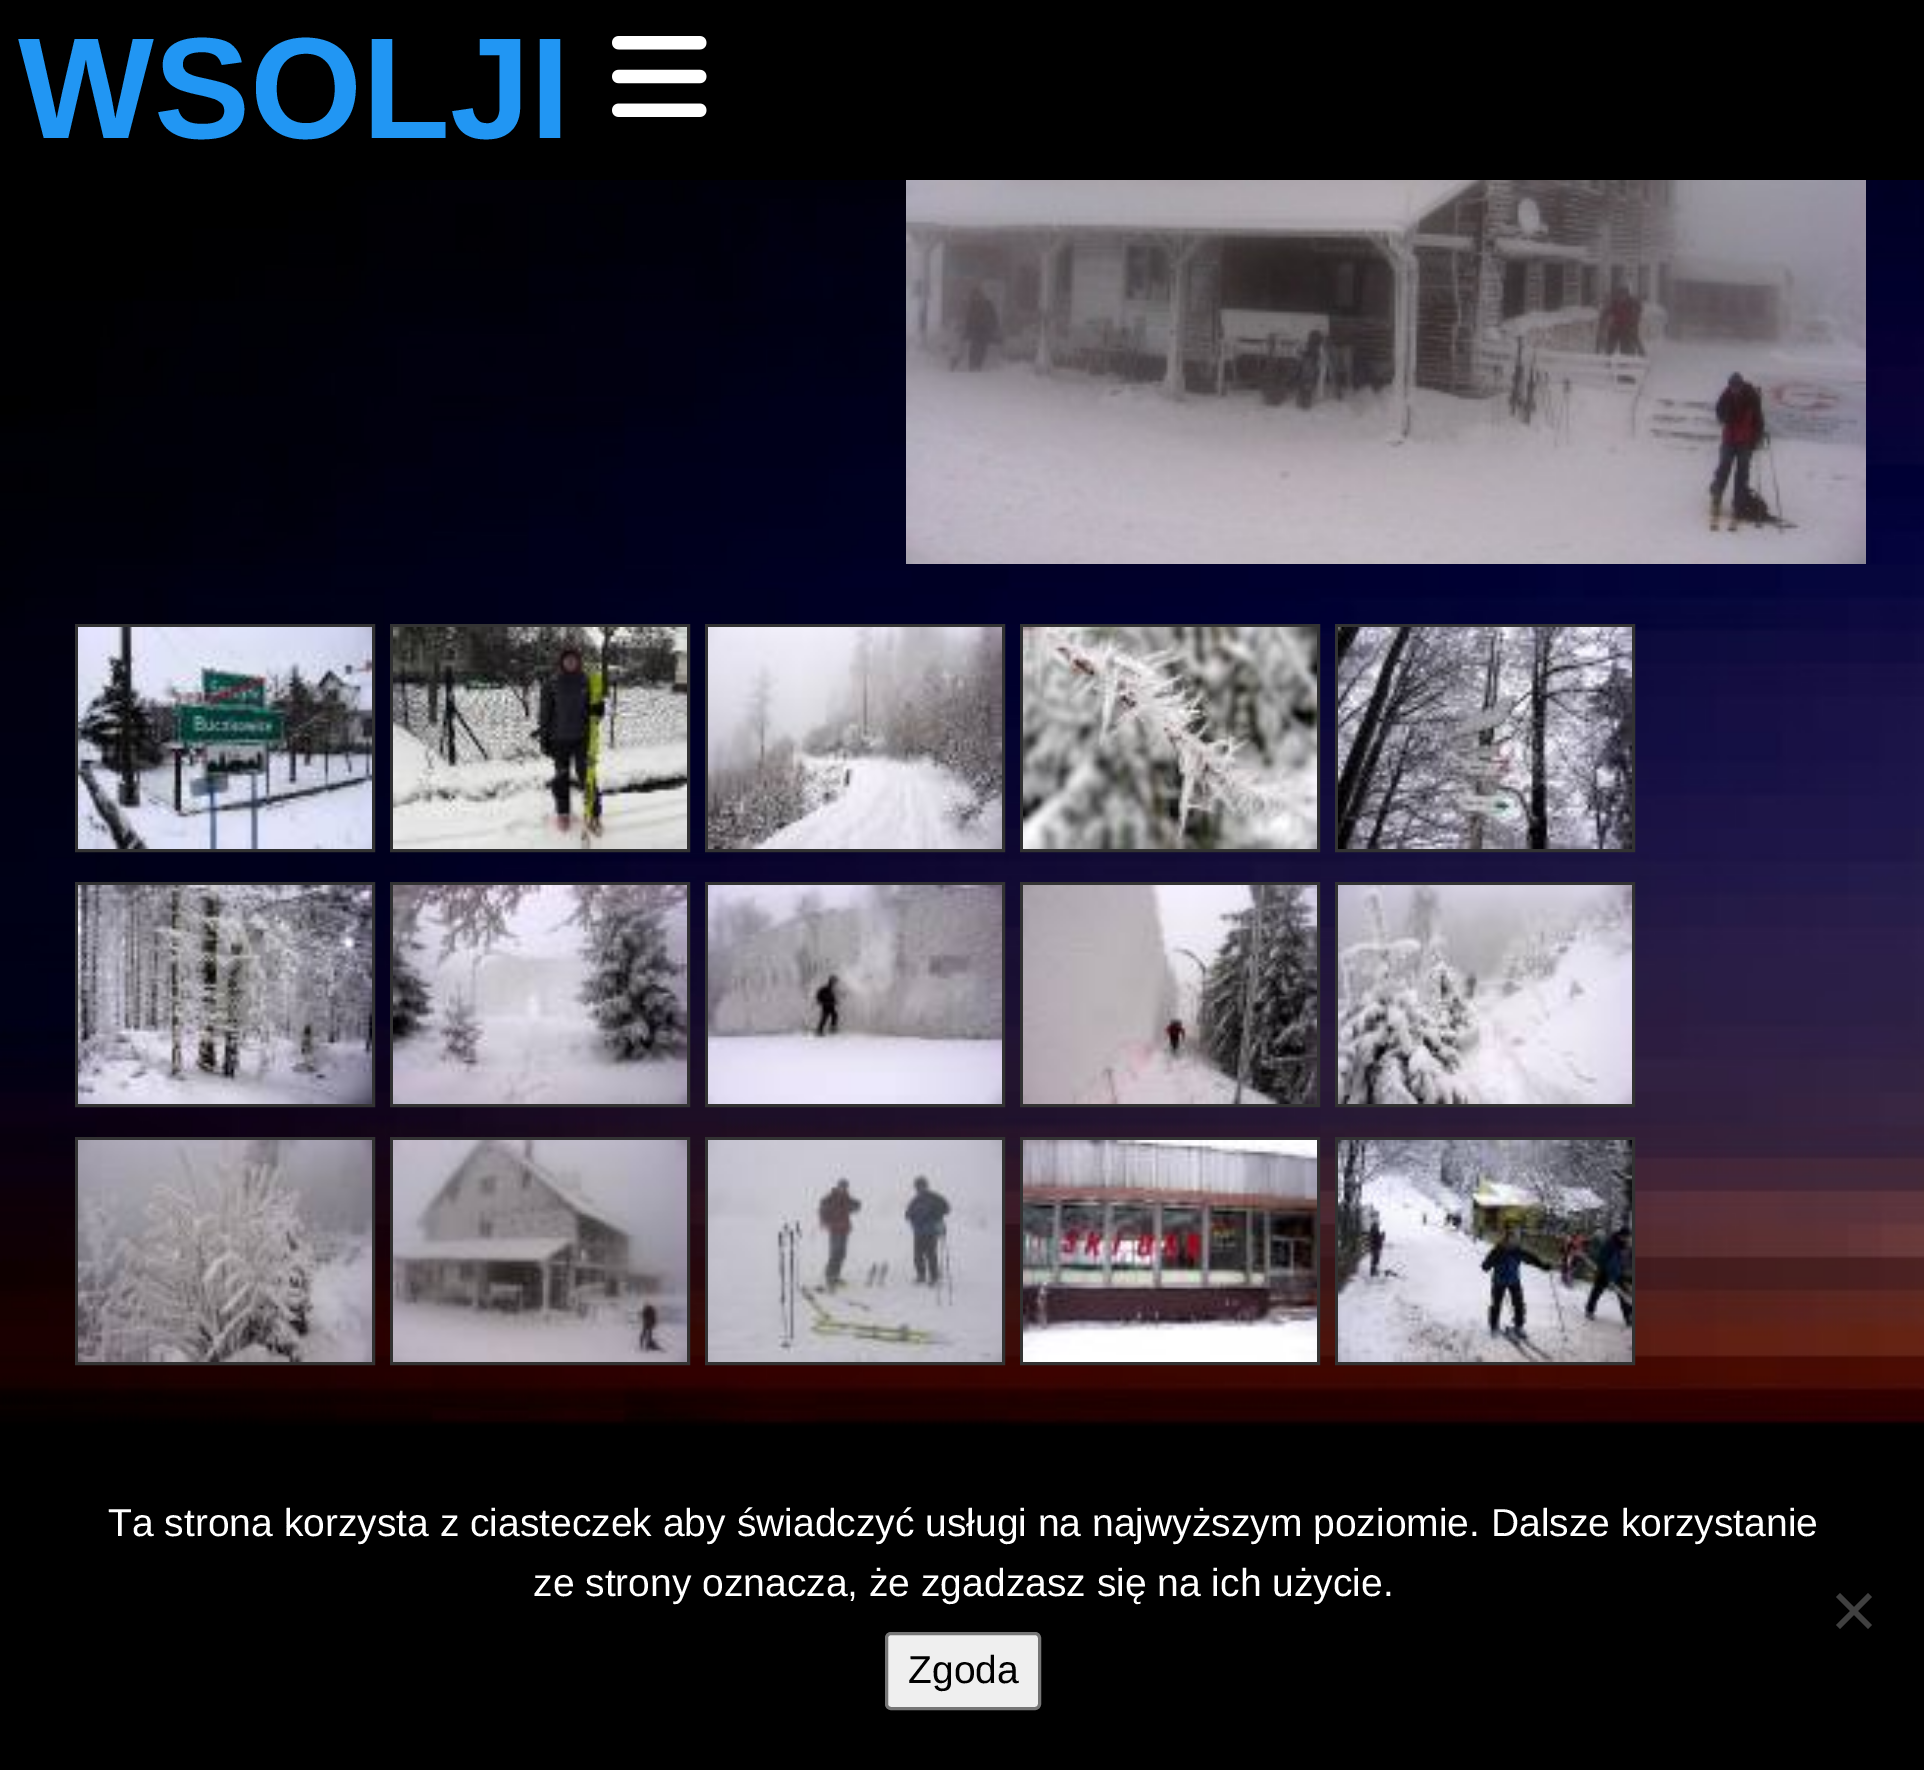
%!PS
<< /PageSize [1924 1770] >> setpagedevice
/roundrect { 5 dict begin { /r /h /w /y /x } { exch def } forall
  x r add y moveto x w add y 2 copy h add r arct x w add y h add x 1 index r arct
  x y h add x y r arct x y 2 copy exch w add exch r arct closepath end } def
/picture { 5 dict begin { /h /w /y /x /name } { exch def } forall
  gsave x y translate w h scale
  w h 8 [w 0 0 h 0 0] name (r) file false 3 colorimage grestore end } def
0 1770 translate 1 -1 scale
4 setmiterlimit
0 setgray
0 0 1924 1770 rectfill
(img1.rgb) 0 180 1924 1246 picture
/LiberationSans-Bold [144 0 0 -144 0 0] selectfont
0.129 0.588 0.953 setrgbcolor
18 138 moveto (WSOLJI) show
(img2.rgb) 612 36 95 81 picture
(img3.rgb) 906 180 960 384 picture
0.2 setgray
3 setlinewidth
76.5 625.5 297 225 rectstroke
(img4.rgb) 78 627 294 222 picture
391.5 625.5 297 225 rectstroke
(img5.rgb) 393 627 294 222 picture
706.5 625.5 297 225 rectstroke
(img6.rgb) 708 627 294 222 picture
1021.5 625.5 297 225 rectstroke
(img7.rgb) 1023 627 294 222 picture
1336.5 625.5 297 225 rectstroke
(img8.rgb) 1338 627 294 222 picture
76.5 883.5 297 222 rectstroke
(img9.rgb) 78 885 294 219 picture
391.5 883.5 297 222 rectstroke
(img10.rgb) 393 885 294 219 picture
706.5 883.5 297 222 rectstroke
(img11.rgb) 708 885 294 219 picture
1021.5 883.5 297 222 rectstroke
(img12.rgb) 1023 885 294 219 picture
1336.5 883.5 297 222 rectstroke
(img13.rgb) 1338 885 294 219 picture
76.5 1138.5 297 225 rectstroke
(img14.rgb) 78 1140 294 222 picture
391.5 1138.5 297 225 rectstroke
(img15.rgb) 393 1140 294 222 picture
706.5 1138.5 297 225 rectstroke
(img16.rgb) 708 1140 294 222 picture
1021.5 1138.5 297 225 rectstroke
(img17.rgb) 1023 1140 294 222 picture
1336.5 1138.5 297 225 rectstroke
(img18.rgb) 1338 1140 294 222 picture
/LiberationSans-Regular [39 0 0 -39 0 0] selectfont
1 setgray
108 1536 moveto (Ta strona korzysta z ciasteczek aby świadczyć usługi na najwyższym poziomie. Dalsze korzystanie) show
533 1596 moveto (ze strony oznacza, że zgadzasz się na ich użycie.) show
0.251 setgray
newpath 1868 1593 moveto 1872 1597 lineto 1840 1629 lineto 1836 1625 lineto closepath fill
newpath 1836 1597 moveto 1840 1593 lineto 1872 1625 lineto 1868 1629 lineto closepath fill
0.937 setgray
886.5 1633.5 153 75 4.5 roundrect gsave fill grestore
0.463 setgray
stroke
0 setgray
908 1683 moveto (Zgoda) show
showpage
